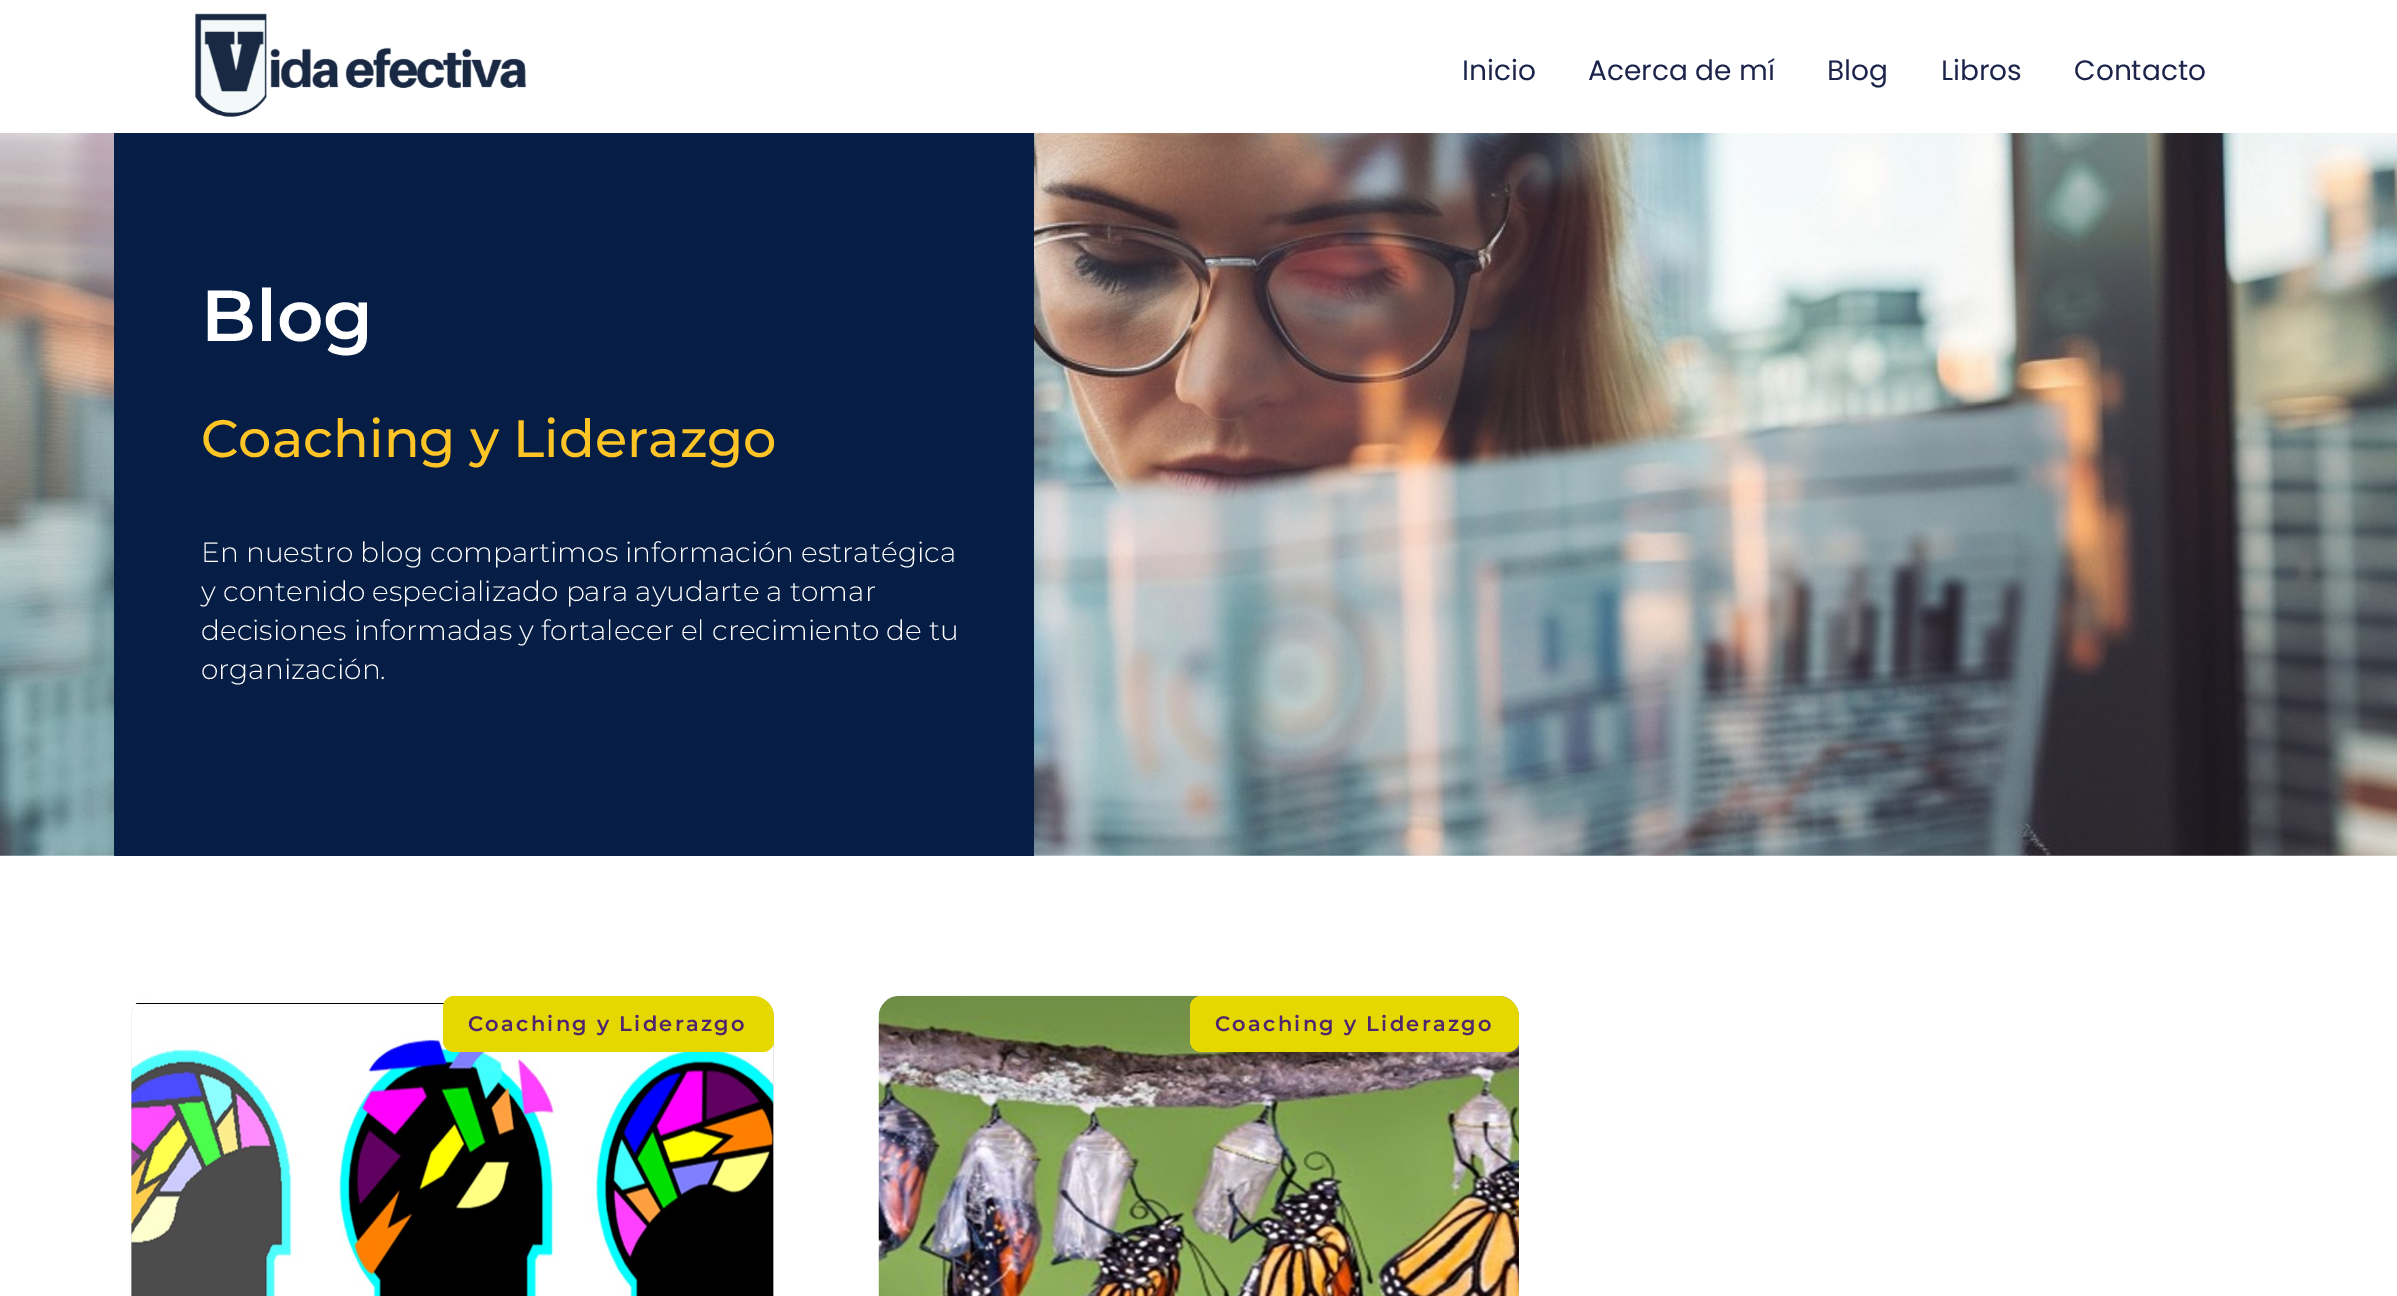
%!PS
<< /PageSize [2397 1296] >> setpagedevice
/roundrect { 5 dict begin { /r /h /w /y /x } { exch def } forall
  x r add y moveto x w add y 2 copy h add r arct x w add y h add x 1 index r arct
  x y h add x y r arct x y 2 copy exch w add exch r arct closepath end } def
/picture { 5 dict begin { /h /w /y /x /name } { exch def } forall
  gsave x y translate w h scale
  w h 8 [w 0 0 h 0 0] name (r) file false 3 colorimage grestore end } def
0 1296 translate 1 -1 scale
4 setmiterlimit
1 setgray
0 0 2397 1296 rectfill
(img1.rgb) 195 13 331 104 picture
/Poppins-Regular [28 0 0 -28 0 0] selectfont
0.11 0.141 0.294 setrgbcolor
1462 80 moveto (Inicio) show
1588 80 moveto (Acerca de mí) show
1827 80 moveto (Blog) show
1941 80 moveto (Libros) show
2074 80 moveto (Contacto) show
(img2.rgb) 0 133 2397 723 picture
0.024 0.114 0.271 setrgbcolor
114 133 920 723 rectfill
/Montserrat-SemiBold [72 0 0 -72 0 0] selectfont
1 setgray
201 341 moveto (Blog) show
/Montserrat-Medium [52.5 0 0 -52.5 0 0] selectfont
1 0.773 0.153 setrgbcolor
201 457 moveto (Coaching y Liderazgo) show
/Montserrat-Light [28 0 0 -28 0 0] selectfont
1 setgray
201 562 moveto (En nuestro blog compartimos información estratégica) show
201 601 moveto (y contenido especializado para ayudarte a tomar) show
201 640 moveto (decisiones informadas y fortalecer el crecimiento de tu) show
201 679 moveto (organización.) show
0.886 setgray
131 996 643 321 21 roundrect fill
(img3.rgb) 131 996 643 300 picture
0.898 0.847 0 setrgbcolor
newpath 454 996 moveto 753 996 lineto 764.5 996 774 1005.5 774 1017 curveto 774 1041 lineto 774 1047 769 1052 763 1052 curveto 454 1052 lineto 448 1052 443 1047 443 1041 curveto 443 1007 lineto 443 1001 448 996 454 996 curveto closepath fill
/Montserrat-SemiBold [21 0 0 -21 0 0] selectfont
0.31 0.145 0.431 setrgbcolor
468 1031 moveto 2.25 0 (Coaching y Liderazgo) ashow
(img4.rgb) 878 995 641 301 picture
0.898 0.847 0 setrgbcolor
newpath 1201 996 moveto 1498 996 lineto 1509.5 996 1519 1005.5 1519 1017 curveto 1519 1041 lineto 1519 1047 1514 1052 1508 1052 curveto 1201 1052 lineto 1195 1052 1190 1047 1190 1041 curveto 1190 1007 lineto 1190 1001 1195 996 1201 996 curveto closepath fill
0.31 0.145 0.431 setrgbcolor
1215 1031 moveto 2.25 0 (Coaching y Liderazgo) ashow
showpage
